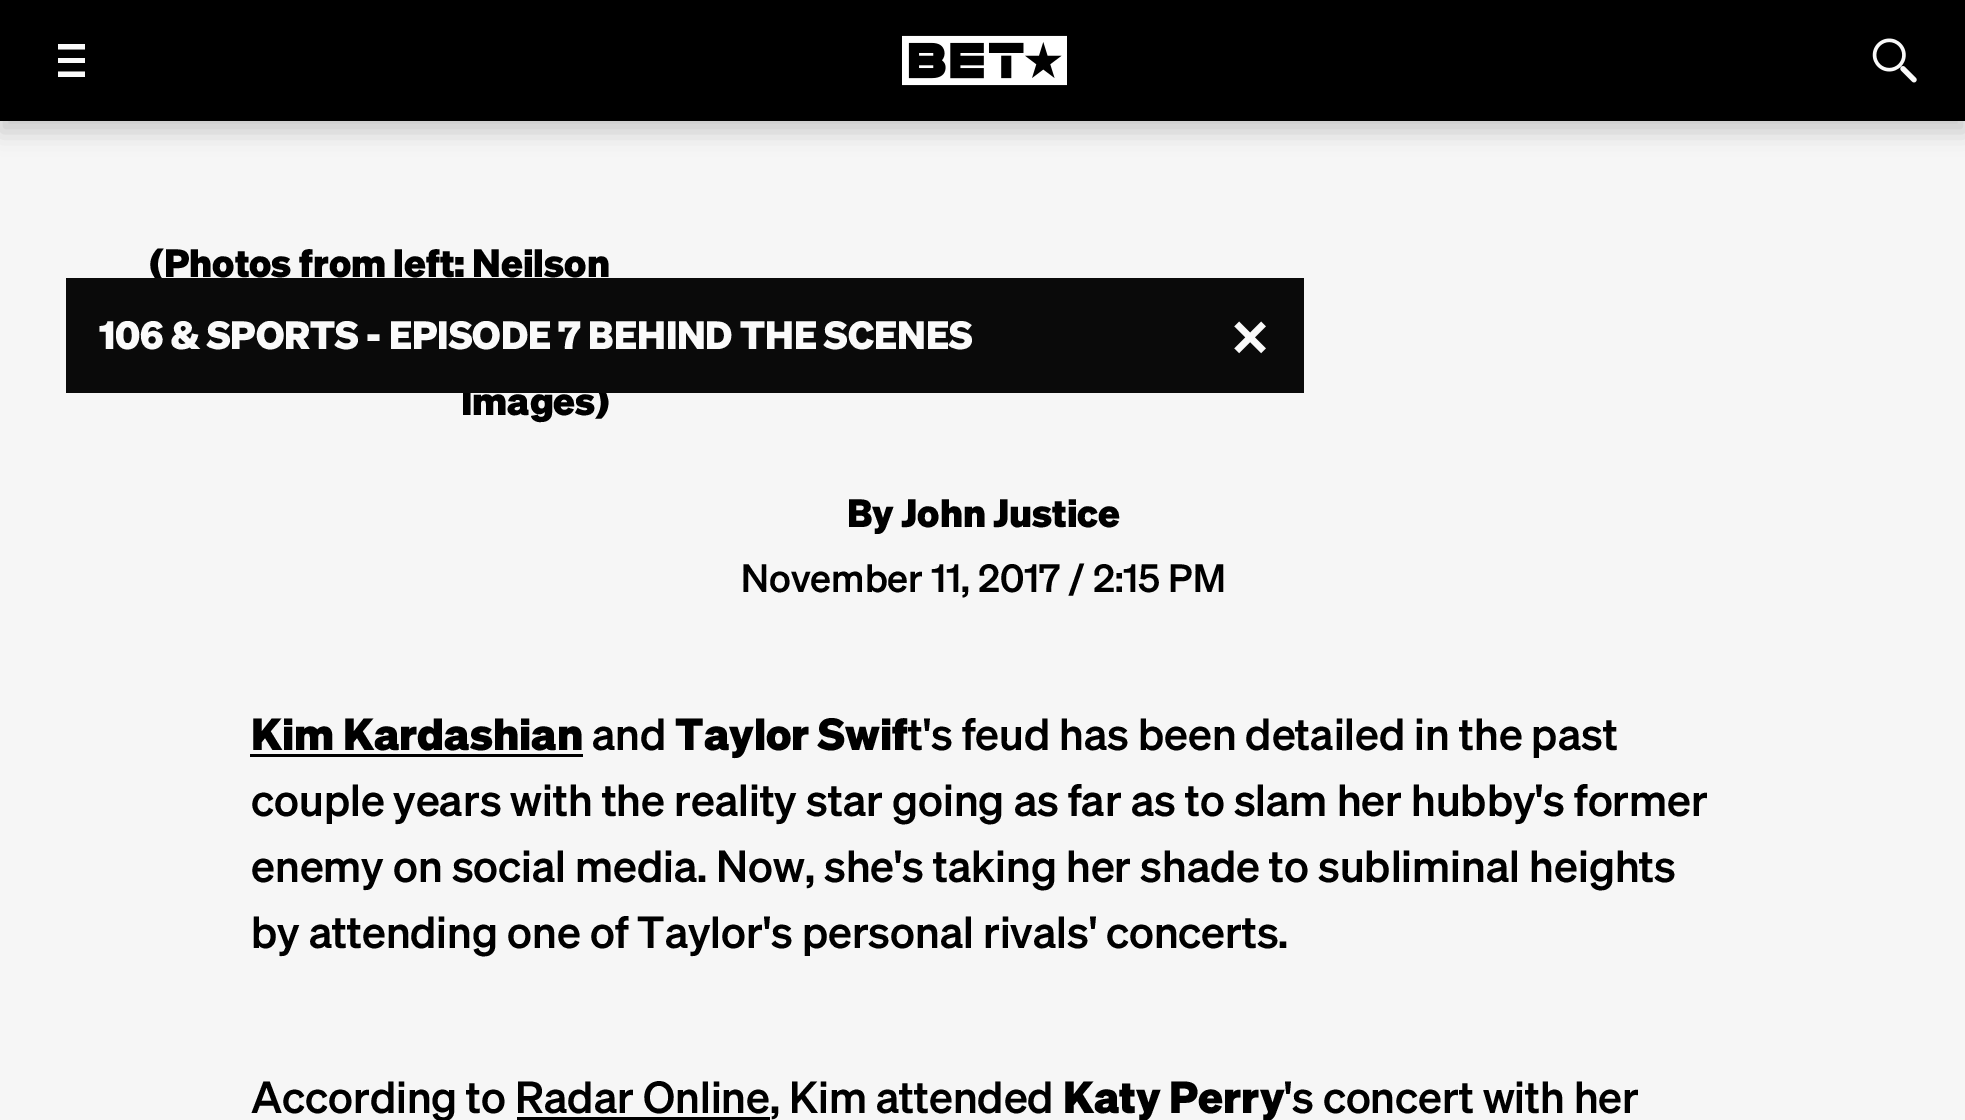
%!PS
<< /PageSize [1965 1120] /PageUsesTransparency true >> setpagedevice
/alpha { dup .setfillconstantalpha .setstrokeconstantalpha } def
/roundrect { 5 dict begin { /r /h /w /y /x } { exch def } forall
  x r add y moveto x w add y 2 copy h add r arct x w add y h add x 1 index r arct
  x y h add x y r arct x y 2 copy exch w add exch r arct closepath end } def
/shadow { 12 dict begin { /a /b /q /h /w /y /x } { exch def } forall gsave /was 0 def
  9 -2 -9 { dup b mul 4 div /e exch def 1 sub .425 mul 2.718 exch exp 1 add a .99 .min exch div /now exch def
    1 1 now sub 1 was sub div sub alpha /was now def
    w h .min e 2 mul add 0 gt { x e sub y e sub w e 2 mul add h e 2 mul add
      q e add b .6 mul add w h .min 2 div e add .min 0 .max roundrect fill } if } for grestore end } def
/picture { 5 dict begin { /h /w /y /x /name } { exch def } forall
  gsave x y translate w h scale
  w h 8 [w 0 0 h 0 0] name (r) file false 3 colorimage grestore end } def
0 .pushpdf14devicefilter
0 1120 translate 1 -1 scale
4 setmiterlimit
0.965 setgray
0 0 1965 1120 rectfill
0 setgray
0 11 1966 121 0 11 0.18 shadow
0 0 1965 121 rectfill
0.98 setgray
newpath 58 71.5 moveto 85 71.5 lineto 85 77 lineto 58 77 lineto closepath 58 58 moveto 85 58 lineto 85 63 lineto 58 63 lineto closepath 58 44 moveto 85 44 lineto 85 49.5 lineto 58 49.5 lineto closepath fill
(img1.rgb) 902 35 165 51 picture
(img2.rgb) 1872 38 45 45 picture
/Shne-ExtraBold [38.5 0 0 -38.5 0 0] selectfont
0 setgray
149 277 moveto (\(Photos from left: Neilson) show
461 415 moveto (Images\)) show
847 527 moveto (By John Justice) show
/Shne-Medium [38.5 0 0 -38.5 0 0] selectfont
741 592 moveto (November 11, 2017 / 2:15 PM) show
/Shne-ExtraBold [44 0 0 -44 0 0] selectfont
251 750 moveto (Kim Kardashian) show
250 754 333 3 rectfill
/Shne-Medium [44 0 0 -44 0 0] selectfont
592 750 moveto (and) show
/Shne-ExtraBold [44 0 0 -44 0 0] selectfont
675 750 moveto (Taylor Swif) show
/Shne-Medium [44 0 0 -44 0 0] selectfont
908 750 moveto (t's feud has been detailed in the past) show
251 816 moveto (couple years with the reality star going as far as to slam her hubby's former) show
251 882 moveto (enemy on social media. Now, she's taking her shade to subliminal heights) show
251 948 moveto (by attending one of Taylor's personal rivals' concerts.) show
251 1113 moveto (According to Radar Online, Kim attended) show
/Shne-ExtraBold [44 0 0 -44 0 0] selectfont
1063 1113 moveto (Katy Perry) show
/Shne-Medium [44 0 0 -44 0 0] selectfont
1284 1113 moveto ('s concert with her) show
517 1117 253 3 rectfill
0.039 setgray
66 278 1238 115 rectfill
/Shne-ExtraBold [38.5 0 0 -38.5 0 0] selectfont
0.98 setgray
99 349 moveto (106 & SPORTS - EPISODE 7 BEHIND THE SCENES) show
/Shne-Medium [66 0 0 -66 0 0] selectfont
1230 360 moveto (×) show
.poppdf14devicefilter showpage
